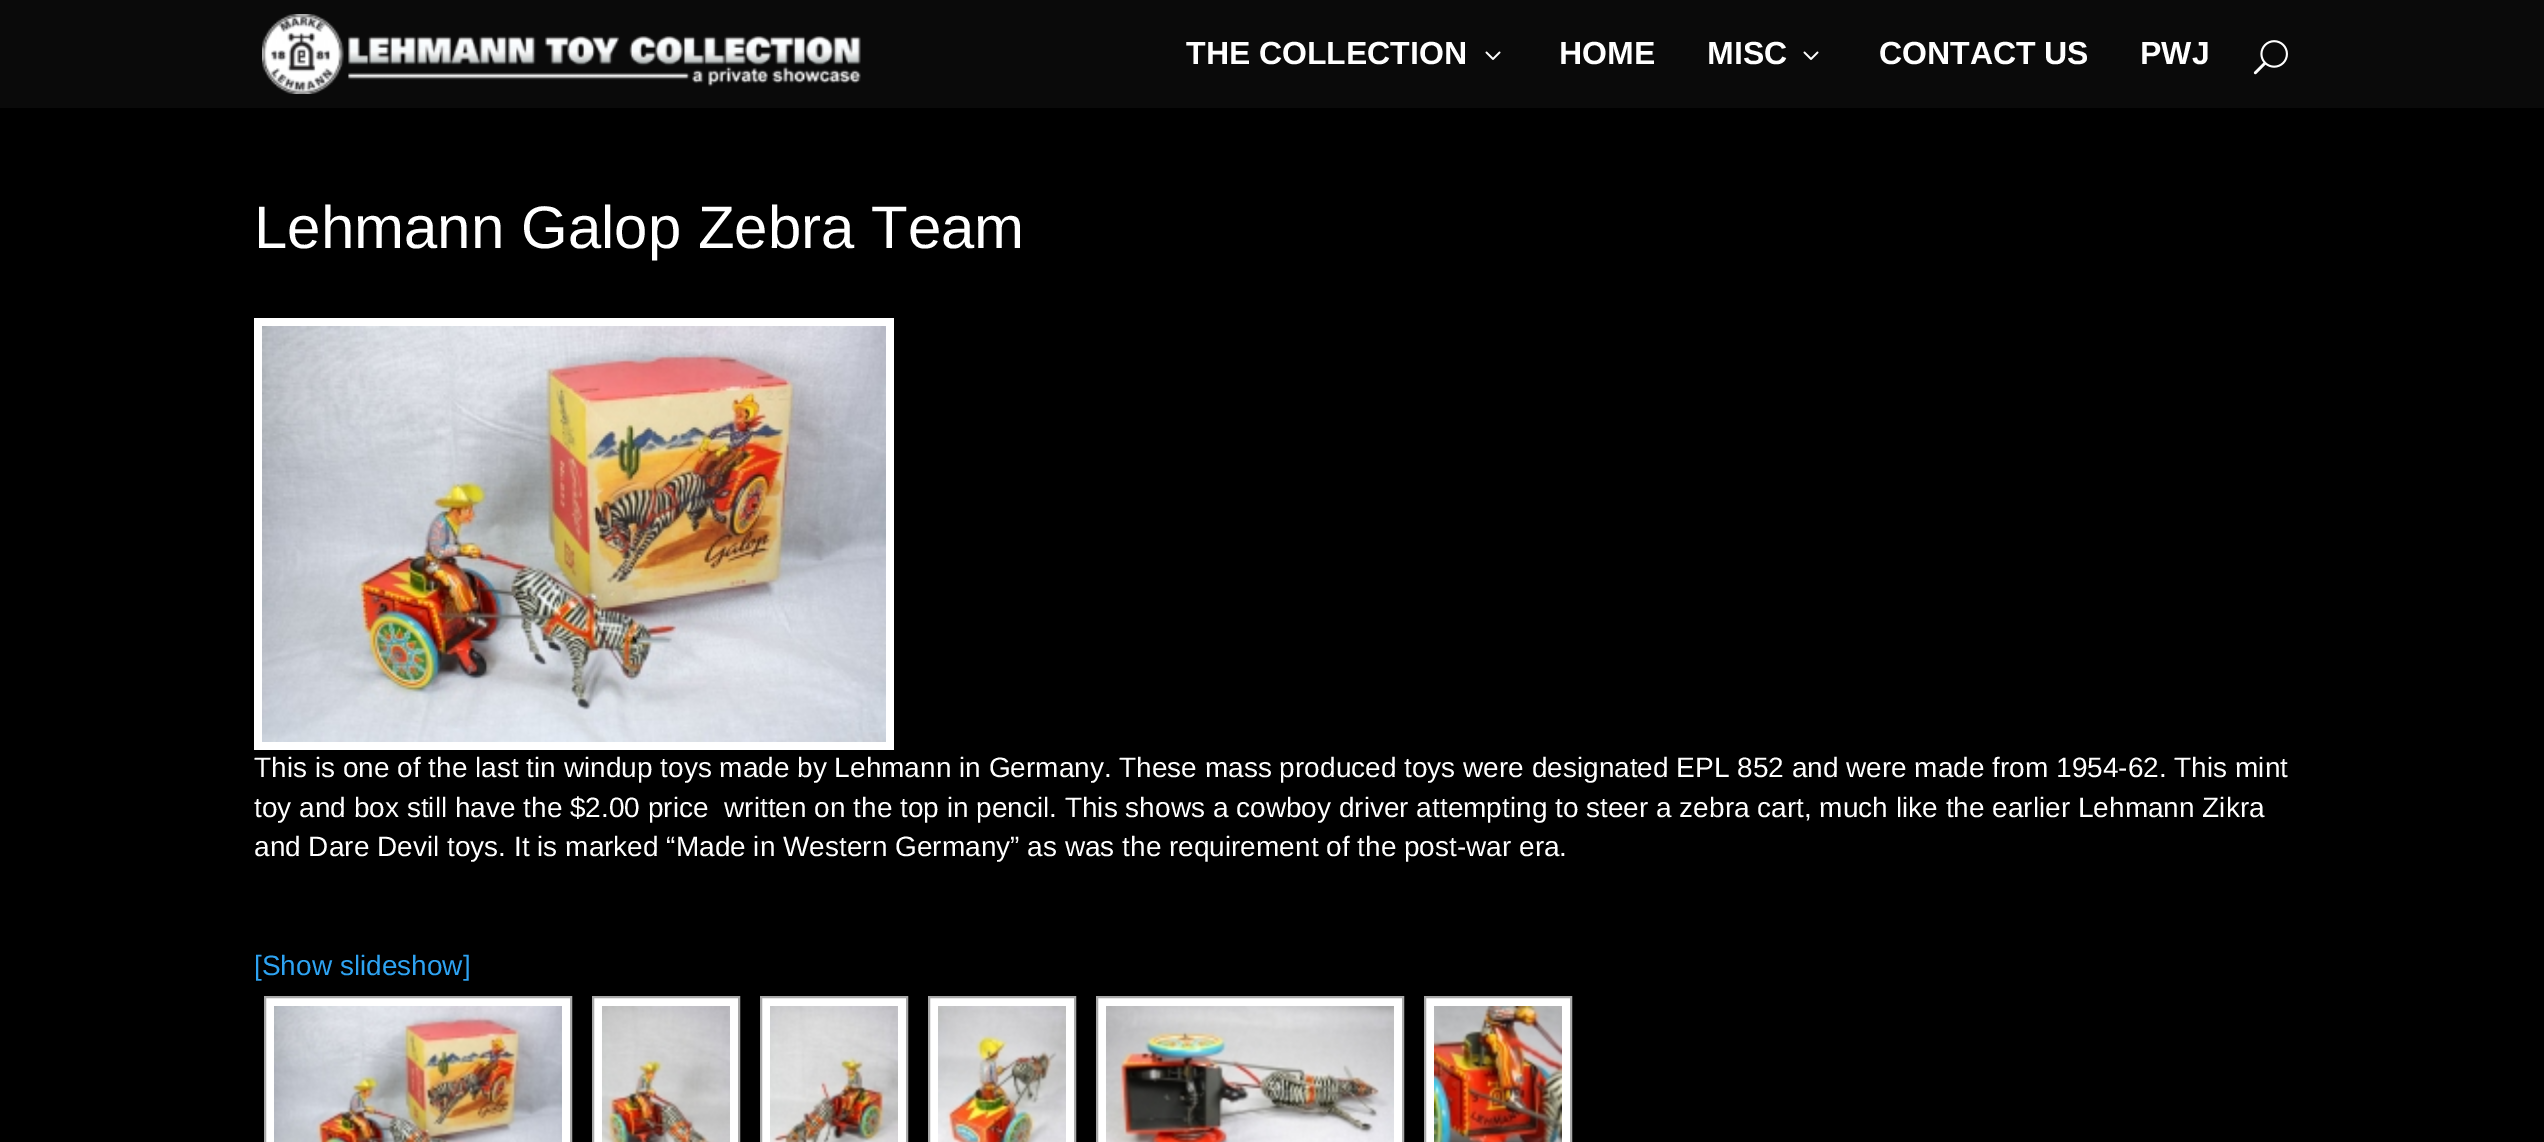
%!PS
<< /PageSize [2544 1142] >> setpagedevice
/picture { 5 dict begin { /h /w /y /x /name } { exch def } forall
  gsave x y translate w h scale
  w h 8 [w 0 0 h 0 0] name (r) file false 3 colorimage grestore end } def
0 1142 translate 1 -1 scale
4 setmiterlimit
0 setgray
0 0 2544 1142 rectfill
0.039 setgray
0 0 2544 108 rectfill
(img1.rgb) 262 14 599 80 picture
/LiberationSans-Bold [32 0 0 -32 0 0] selectfont
1 setgray
1186 64 moveto (THE COLLECTION) show
(img2.rgb) 1485 51 16 9 picture
1559 64 moveto (HOME) show
1707 64 moveto (MISC) show
(img2.rgb) 1803 51 16 9 picture
1879 64 moveto (CONTACT US) show
2140 64 moveto (PWJ) show
(img3.rgb) 2253 40 35 35 picture
/LiberationSans-Regular [60 0 0 -60 0 0] selectfont
254 248 moveto (Lehmann Galop Zebra Team) show
254 318 640 432 rectfill
(img4.rgb) 262 326 624 416 picture
/LiberationSans-Regular [28 0 0 -28 0 0] selectfont
254 777 moveto (This is one of the last tin windup toys made by Lehmann in Germany. These mass produced toys were designated EPL 852 and were made from 1954-62. This mint) show
254 817 moveto (toy and box still have the $2.00 price  written on the top in pencil. This shows a cowboy driver attempting to steer a zebra cart, much like the earlier Lehmann Zikra) show
254 856 moveto (and Dare Devil toys. It is marked “Made in Western Germany” as was the requirement of the post-war era.) show
0.18 0.639 0.949 setrgbcolor
254 975 moveto ([Show slideshow]) show
1 setgray
newpath 265 997 moveto 571 997 lineto 571 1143 lineto 265 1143 lineto closepath gsave fill grestore
0.663 setgray
2 setlinewidth
stroke
(img5.rgb) 274 1006 288 136 picture
1 setgray
newpath 593 997 moveto 739 997 lineto 739 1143 lineto 593 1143 lineto closepath gsave fill grestore
0.663 setgray
stroke
(img6.rgb) 602 1006 128 136 picture
1 setgray
newpath 761 997 moveto 907 997 lineto 907 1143 lineto 761 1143 lineto closepath gsave fill grestore
0.663 setgray
stroke
(img7.rgb) 770 1006 128 136 picture
1 setgray
newpath 929 997 moveto 1075 997 lineto 1075 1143 lineto 929 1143 lineto closepath gsave fill grestore
0.663 setgray
stroke
(img8.rgb) 938 1006 128 136 picture
1 setgray
newpath 1097 997 moveto 1403 997 lineto 1403 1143 lineto 1097 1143 lineto closepath gsave fill grestore
0.663 setgray
stroke
(img9.rgb) 1106 1006 288 136 picture
1 setgray
newpath 1425 997 moveto 1571 997 lineto 1571 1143 lineto 1425 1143 lineto closepath gsave fill grestore
0.663 setgray
stroke
(img10.rgb) 1434 1006 128 136 picture
showpage
